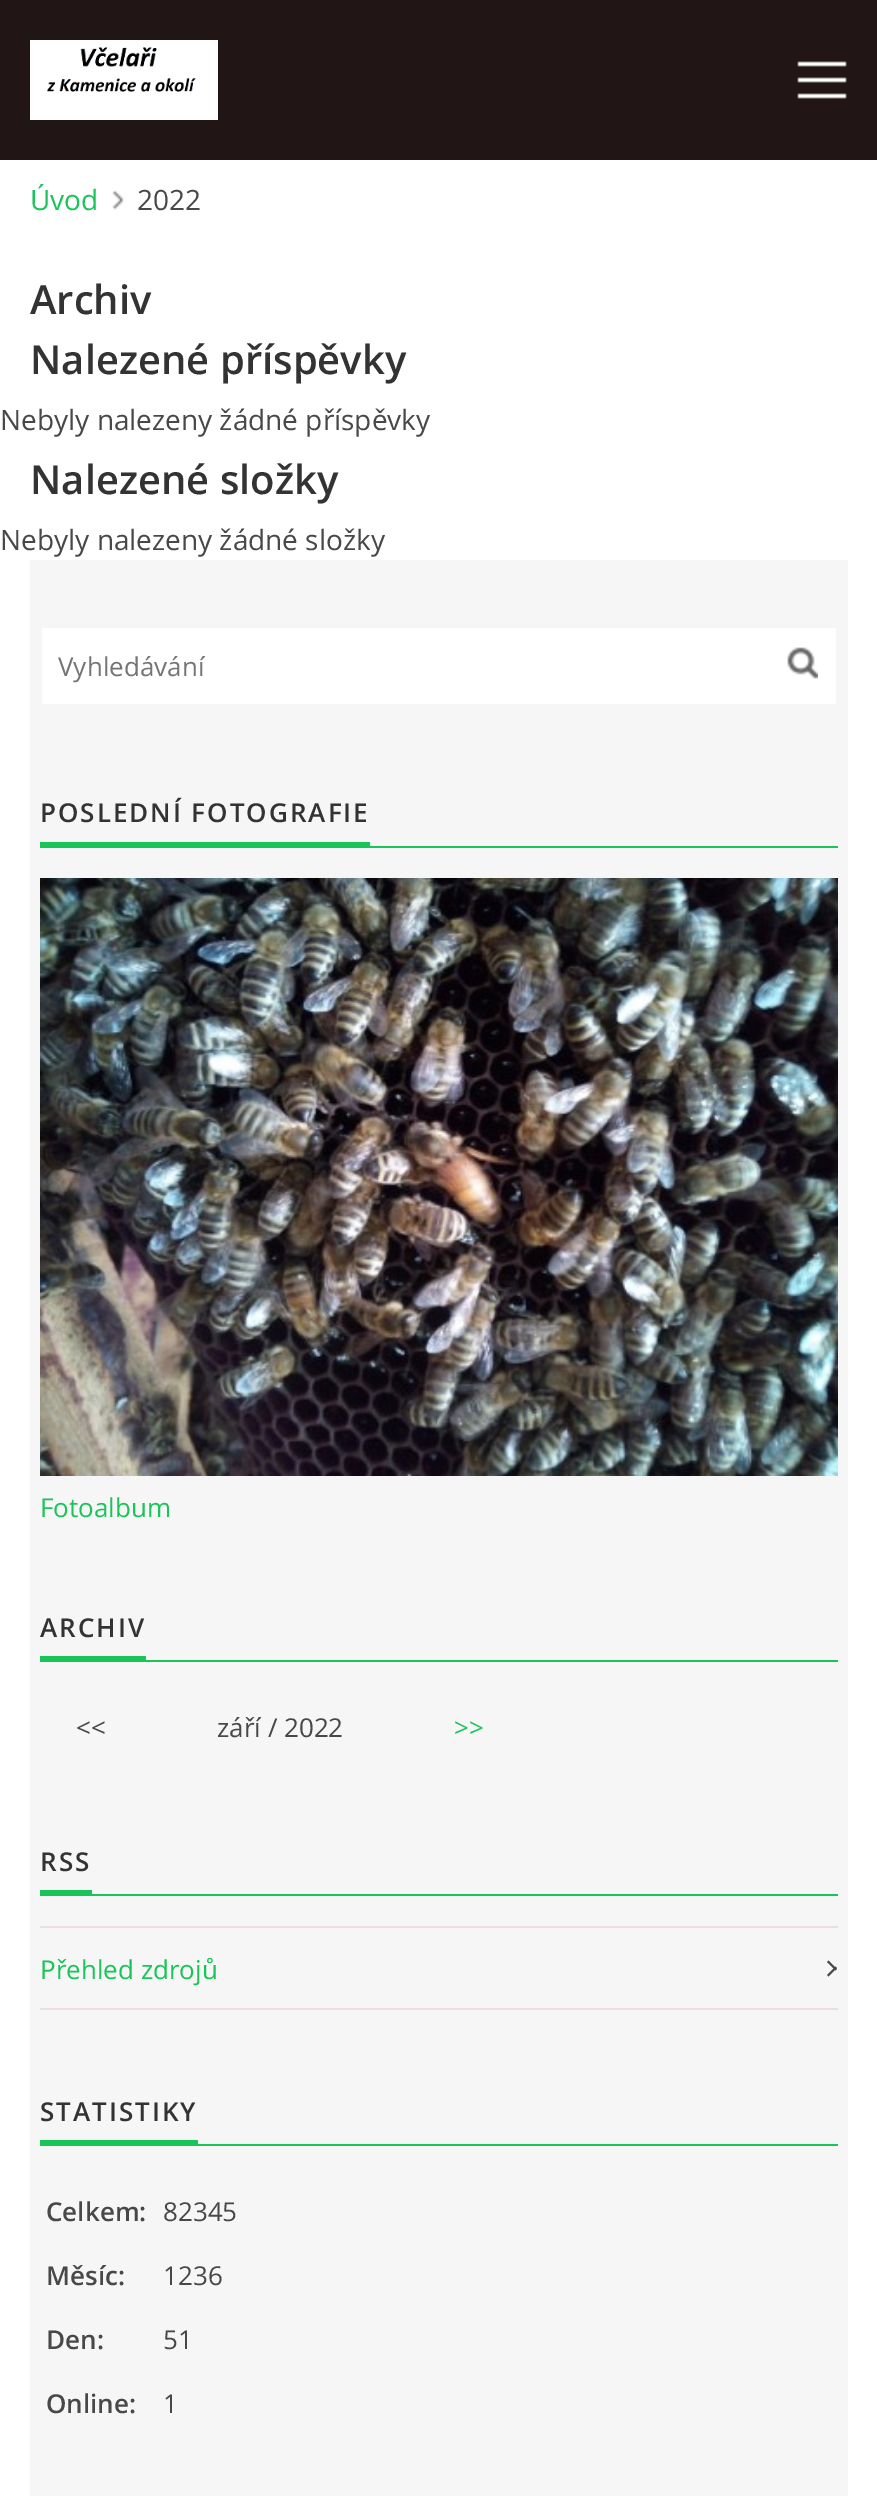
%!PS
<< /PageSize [877 2500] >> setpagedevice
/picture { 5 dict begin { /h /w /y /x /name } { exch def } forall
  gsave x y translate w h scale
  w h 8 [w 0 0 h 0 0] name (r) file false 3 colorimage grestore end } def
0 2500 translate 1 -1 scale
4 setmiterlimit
1 setgray
0 0 877 2500 rectfill
0.129 0.082 0.082 setrgbcolor
0 0 877 160 rectfill
(img1.rgb) 30 40 188 80 picture
(img2.rgb) 797 61 50 38 picture
(img3.rgb) 112 190 12 20 picture
/OpenSans-Regular [28 0 0 -28 0 0] selectfont
0.098 0.773 0.349 setrgbcolor
30 210 moveto (Úvod) show
0.282 setgray
137 210 moveto (2022) show
/OpenSans-SemiBold [40 0 0 -40 0 0] selectfont
0.2 setgray
30 314 moveto (Archiv) show
30 374 moveto (Nalezené příspěvky) show
/OpenSans-Regular [28 0 0 -28 0 0] selectfont
0.282 setgray
0 430 moveto (Nebyly nalezeny žádné příspěvky) show
/OpenSans-SemiBold [40 0 0 -40 0 0] selectfont
0.2 setgray
30 494 moveto (Nalezené složky) show
/OpenSans-Regular [28 0 0 -28 0 0] selectfont
0.282 setgray
0 550 moveto (Nebyly nalezeny žádné složky) show
0.965 setgray
30 560 818 1936 rectfill
1 setgray
42 628 794 76 rectfill
/OpenSans-Regular [26 0 0 -26 0 0] selectfont
0.459 setgray
58 676 moveto (Vyhledávání) show
(img4.rgb) 787 647 31 32 picture
/OpenSans-SemiBold [26 0 0 -26 0 0] selectfont
0.2 setgray
40 822 moveto 2 0 (POSLEDNÍ FOTOGRAFIE) ashow
0.098 0.773 0.349 setrgbcolor
40 842 330 4 rectfill
40 846 798 2 rectfill
(img5.rgb) 40 878 798 598 picture
/OpenSans-Regular [26 0 0 -26 0 0] selectfont
40 1517 moveto (Fotoalbum) show
/OpenSans-SemiBold [26 0 0 -26 0 0] selectfont
0.2 setgray
40 1637 moveto 2 0 (ARCHIV) ashow
0.098 0.773 0.349 setrgbcolor
40 1656 106 4 rectfill
40 1660 798 2 rectfill
/OpenSans-Regular [26 0 0 -26 0 0] selectfont
0.282 setgray
76 1737 moveto (<<) show
217 1737 moveto (září / 2022) show
0.098 0.773 0.349 setrgbcolor
454 1737 moveto (>>) show
/OpenSans-SemiBold [26 0 0 -26 0 0] selectfont
0.2 setgray
40 1871 moveto 2 0 (RSS) ashow
0.098 0.773 0.349 setrgbcolor
40 1890 52 4 rectfill
40 1894 798 2 rectfill
0.91 0.875 0.875 setrgbcolor
40 1926 798 2 rectfill
40 2008 798 2 rectfill
/OpenSans-Regular [26 0 0 -26 0 0] selectfont
0.098 0.773 0.349 setrgbcolor
40 1979 moveto (Přehled zdrojů) show
0.282 setgray
newpath 828.5 1960.5 moveto 837 1969 lineto 835.5 1970.5 lineto 827 1962 lineto closepath fill
newpath 827 1975 moveto 835.5 1966.5 lineto 837 1968 lineto 828.5 1976.5 lineto closepath fill
/OpenSans-SemiBold [26 0 0 -26 0 0] selectfont
0.2 setgray
40 2121 moveto 2 0 (STATISTIKY) ashow
0.098 0.773 0.349 setrgbcolor
40 2140 158 4 rectfill
40 2144 798 2 rectfill
0.282 setgray
46 2221 moveto (Celkem:) show
/OpenSans-Regular [26 0 0 -26 0 0] selectfont
163 2221 moveto (82345) show
/OpenSans-SemiBold [26 0 0 -26 0 0] selectfont
46 2285 moveto (Měsíc:) show
/OpenSans-Regular [26 0 0 -26 0 0] selectfont
163 2285 moveto (1236) show
/OpenSans-SemiBold [26 0 0 -26 0 0] selectfont
46 2349 moveto (Den:) show
/OpenSans-Regular [26 0 0 -26 0 0] selectfont
163 2349 moveto (51) show
/OpenSans-SemiBold [26 0 0 -26 0 0] selectfont
46 2413 moveto (Online:) show
/OpenSans-Regular [26 0 0 -26 0 0] selectfont
163 2413 moveto (1) show
showpage
